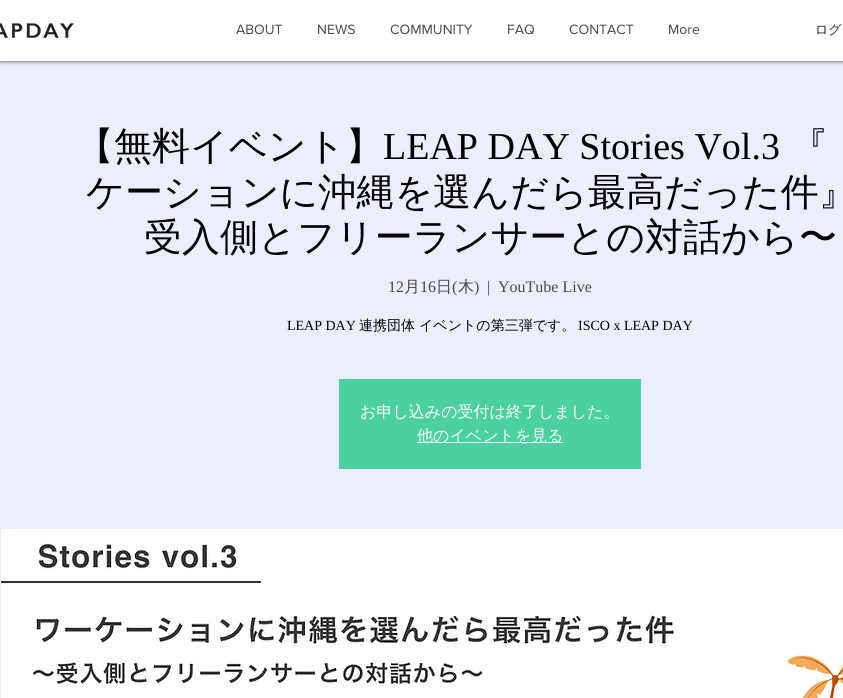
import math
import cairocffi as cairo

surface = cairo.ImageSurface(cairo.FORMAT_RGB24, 843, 698)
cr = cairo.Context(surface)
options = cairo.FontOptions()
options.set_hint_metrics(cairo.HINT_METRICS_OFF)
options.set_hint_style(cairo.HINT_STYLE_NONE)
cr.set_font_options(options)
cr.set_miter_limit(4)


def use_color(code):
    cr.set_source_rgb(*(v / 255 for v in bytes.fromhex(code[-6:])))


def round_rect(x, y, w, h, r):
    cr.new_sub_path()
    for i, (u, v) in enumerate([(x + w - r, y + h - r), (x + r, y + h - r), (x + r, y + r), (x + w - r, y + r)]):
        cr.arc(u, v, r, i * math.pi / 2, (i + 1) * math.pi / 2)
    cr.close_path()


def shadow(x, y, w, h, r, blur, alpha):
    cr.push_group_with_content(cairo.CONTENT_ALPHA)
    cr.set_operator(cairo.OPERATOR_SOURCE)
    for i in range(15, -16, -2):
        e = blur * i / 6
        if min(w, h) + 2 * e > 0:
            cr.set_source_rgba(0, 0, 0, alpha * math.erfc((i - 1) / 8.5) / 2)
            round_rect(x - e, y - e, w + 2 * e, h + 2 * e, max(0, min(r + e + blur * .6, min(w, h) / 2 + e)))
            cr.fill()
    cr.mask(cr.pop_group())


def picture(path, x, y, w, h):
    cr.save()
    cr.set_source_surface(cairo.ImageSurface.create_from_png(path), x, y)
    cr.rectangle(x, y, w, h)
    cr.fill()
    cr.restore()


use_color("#ffffff")
cr.paint()
use_color("#eceefb")
cr.rectangle(0, 61, 843, 637)
cr.fill()
cr.save()
cr.rectangle(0, 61, 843, 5)
cr.clip()
use_color("#000000")
shadow(0, 0, 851, 61, 0, 2.5, 0.7)
cr.restore()
picture("img1.png", 0, 23, 74, 15)
cr.select_font_face("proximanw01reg")
cr.set_font_size(14)
use_color("#4b484d")
cr.move_to(236, 34)
cr.show_text("ABOUT")
cr.move_to(317, 34)
cr.show_text("NEWS")
cr.move_to(390, 34)
cr.show_text("COMMUNITY")
cr.move_to(507, 34)
cr.show_text("FAQ")
cr.move_to(569, 34)
cr.show_text("CONTACT")
cr.move_to(668, 34)
cr.show_text("More")
cr.select_font_face("WenQuanYi Zen Hei Medium")
cr.set_font_size(13)
use_color("#242323")
cr.move_to(815, 34)
cr.show_text("ログ")
cr.set_font_size(38)
use_color("#000000")
cr.move_to(76, 159)
cr.show_text("【無料イベント】")
cr.select_font_face("Liberation Serif")
cr.move_to(383, 159)
cr.show_text("LEAP DAY Stories Vol.3")
cr.select_font_face("WenQuanYi Zen Hei Medium")
cr.move_to(790, 159)
cr.show_text("『")
cr.move_to(86, 205)
cr.show_text("ケーションに沖縄を選んだら最高だった件』")
cr.move_to(144, 250)
cr.show_text("受入側とフリーランサーとの対話から〜")
cr.select_font_face("Liberation Serif")
cr.set_font_size(16)
use_color("#4b484d")
cr.move_to(388, 292)
cr.show_text("12")
cr.select_font_face("WenQuanYi Zen Hei Medium")
cr.move_to(404, 292)
cr.show_text("月")
cr.select_font_face("Liberation Serif")
cr.move_to(420, 292)
cr.show_text("16")
cr.select_font_face("WenQuanYi Zen Hei Medium")
cr.move_to(436, 292)
cr.show_text("日")
cr.select_font_face("Liberation Serif")
cr.move_to(452, 292)
cr.show_text("(")
cr.select_font_face("WenQuanYi Zen Hei Medium")
cr.move_to(458, 292)
cr.show_text("木")
cr.select_font_face("Liberation Serif")
cr.move_to(474, 292)
cr.show_text(")")
cr.move_to(487, 292)
cr.show_text("|")
cr.move_to(498, 292)
cr.show_text("YouTube Live")
cr.set_font_size(14)
use_color("#000000")
cr.move_to(287, 330)
cr.show_text("LEAP DAY")
cr.select_font_face("WenQuanYi Zen Hei Medium")
cr.move_to(359, 330)
cr.show_text("連携団体")
cr.move_to(419, 330)
cr.show_text("イベントの第三弾です。")
cr.select_font_face("Liberation Serif")
cr.move_to(578, 330)
cr.show_text("ISCO x LEAP DAY")
use_color("#4bd1a0")
cr.rectangle(339, 379, 302, 90)
cr.fill()
cr.select_font_face("WenQuanYi Zen Hei Medium")
cr.set_font_size(16)
use_color("#ffffff")
cr.move_to(360, 417)
cr.show_text("お申し込みの受付は終了しました。")
cr.rectangle(417, 442, 146, 1)
cr.fill()
cr.move_to(417, 441)
cr.show_text("他のイベントを見る")
picture("img2.png", 1, 529, 842, 169)
surface.write_to_png("result.png")
